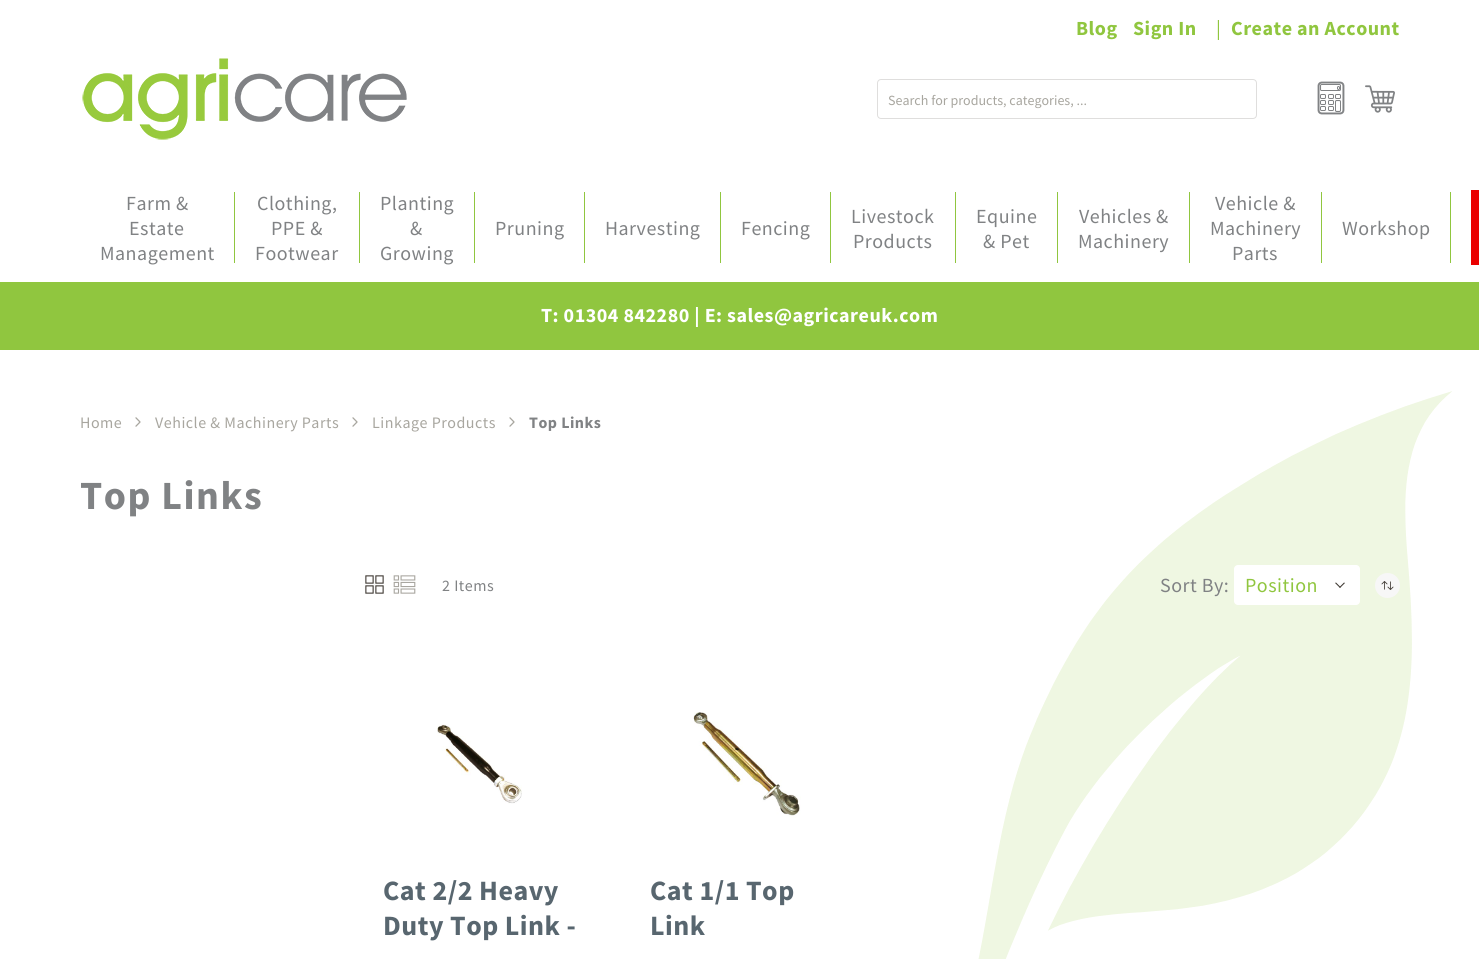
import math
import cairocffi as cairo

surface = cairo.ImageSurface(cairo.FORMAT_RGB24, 1479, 959)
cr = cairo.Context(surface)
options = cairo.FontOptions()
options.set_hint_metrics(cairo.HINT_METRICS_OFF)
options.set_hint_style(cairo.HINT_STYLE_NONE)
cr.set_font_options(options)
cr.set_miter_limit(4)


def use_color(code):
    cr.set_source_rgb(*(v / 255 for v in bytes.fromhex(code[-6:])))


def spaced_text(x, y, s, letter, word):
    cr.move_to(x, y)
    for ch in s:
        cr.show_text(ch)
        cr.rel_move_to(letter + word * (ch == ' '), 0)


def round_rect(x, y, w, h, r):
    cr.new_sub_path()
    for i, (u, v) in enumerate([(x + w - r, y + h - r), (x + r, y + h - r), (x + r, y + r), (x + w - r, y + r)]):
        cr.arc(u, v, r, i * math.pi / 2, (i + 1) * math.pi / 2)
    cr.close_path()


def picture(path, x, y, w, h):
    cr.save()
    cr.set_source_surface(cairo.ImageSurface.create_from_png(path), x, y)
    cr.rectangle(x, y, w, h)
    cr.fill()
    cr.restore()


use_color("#ffffff")
cr.paint()
cr.select_font_face("Source Sans Pro", cairo.FONT_SLANT_NORMAL, cairo.FONT_WEIGHT_BOLD)
cr.set_font_size(20)
use_color("#90c63f")
spaced_text(1076, 35, "Blog", 0.5, 0)
spaced_text(1133, 35, "Sign In", 0.5, 0)
cr.select_font_face("Source Sans Pro")
spaced_text(1216, 35, "|", 0.5, 0)
cr.select_font_face("Source Sans Pro", cairo.FONT_SLANT_NORMAL, cairo.FONT_WEIGHT_BOLD)
spaced_text(1231, 35, "Create an Account", 0.5, 0)
picture("img1.png", 82, 58, 325, 82)
round_rect(877.5, 79.5, 379, 39, 3.5)
use_color("#dfdedd")
cr.set_line_width(1)
cr.stroke()
cr.select_font_face("Source Sans Pro")
cr.set_font_size(14)
use_color("#a8a69f")
cr.move_to(888, 105)
cr.show_text("Search for products, categories, ...")
picture("img2.png", 1317, 81, 28, 34)
picture("img3.png", 1365, 85, 30, 28)
cr.set_font_size(20)
use_color("#808284")
spaced_text(126, 210, "Farm &", 0.5, 0)
spaced_text(129, 235, "Estate", 0.5, 0)
spaced_text(100, 260, "Management", 0.5, 0)
use_color("#90c63f")
cr.rectangle(234, 192, 1, 71)
cr.fill()
use_color("#808284")
spaced_text(257, 210, "Clothing,", 0.5, 0)
spaced_text(271, 235, "PPE &", 0.5, 0)
spaced_text(255, 260, "Footwear", 0.5, 0)
use_color("#90c63f")
cr.rectangle(359, 192, 1, 71)
cr.fill()
use_color("#808284")
spaced_text(380, 210, "Planting", 0.5, 0)
spaced_text(410, 235, "&", 0.5, 0)
spaced_text(380, 260, "Growing", 0.5, 0)
use_color("#90c63f")
cr.rectangle(474, 192, 1, 71)
cr.fill()
use_color("#808284")
spaced_text(495, 235, "Pruning", 0.5, 0)
use_color("#90c63f")
cr.rectangle(584, 192, 1, 71)
cr.fill()
use_color("#808284")
spaced_text(605, 235, "Harvesting", 0.5, 0)
use_color("#90c63f")
cr.rectangle(720, 192, 1, 71)
cr.fill()
use_color("#808284")
spaced_text(741, 235, "Fencing", 0.5, 0)
use_color("#90c63f")
cr.rectangle(830, 192, 1, 71)
cr.fill()
use_color("#808284")
spaced_text(851, 223, "Livestock", 0.5, 0)
spaced_text(853, 248, "Products", 0.5, 0)
use_color("#90c63f")
cr.rectangle(955, 192, 1, 71)
cr.fill()
use_color("#808284")
spaced_text(976, 223, "Equine", 0.5, 0)
spaced_text(983, 248, "& Pet", 0.5, 0)
use_color("#90c63f")
cr.rectangle(1057, 192, 1, 71)
cr.fill()
use_color("#808284")
spaced_text(1079, 223, "Vehicles &", 0.5, 0)
spaced_text(1078, 248, "Machinery", 0.5, 0)
use_color("#90c63f")
cr.rectangle(1189, 192, 1, 71)
cr.fill()
use_color("#808284")
spaced_text(1215, 210, "Vehicle &", 0.5, 0)
spaced_text(1210, 235, "Machinery", 0.5, 0)
spaced_text(1232, 260, "Parts", 0.5, 0)
use_color("#90c63f")
cr.rectangle(1321, 192, 1, 71)
cr.fill()
use_color("#808284")
spaced_text(1342, 235, "Workshop", 0.5, 0)
use_color("#90c63f")
cr.rectangle(1450, 192, 1, 71)
cr.fill()
use_color("#ea0000")
cr.rectangle(1471, 190, 8, 75)
cr.fill()
use_color("#90c63f")
cr.rectangle(0, 282, 1479, 68)
cr.fill()
cr.select_font_face("Source Sans Pro", cairo.FONT_SLANT_NORMAL, cairo.FONT_WEIGHT_BOLD)
use_color("#ffffff")
spaced_text(541, 322, "T: 01304 842280 | E: sales@agricareuk.com", 0.5, 0)
cr.select_font_face("Source Sans Pro")
cr.set_font_size(16)
use_color("#a8a69f")
spaced_text(80, 428, "Home", 0.5, 0)
picture("img4.png", 135, 417, 6, 10)
spaced_text(155, 428, "Vehicle & Machinery Parts", 0.5, 0)
picture("img4.png", 352, 417, 6, 10)
spaced_text(372, 428, "Linkage Products", 0.5, 0)
picture("img4.png", 509, 417, 6, 10)
cr.select_font_face("Source Sans Pro", cairo.FONT_SLANT_NORMAL, cairo.FONT_WEIGHT_BOLD)
use_color("#808284")
spaced_text(529, 428, "Top Links", 0.5, 0)
cr.set_font_size(40)
spaced_text(80, 509, "Top Links", 1.5, 0)
picture("img5.png", 978, 391, 474, 568)
picture("img6.png", 365, 575, 19, 19)
picture("img7.png", 393, 575, 23, 19)
cr.select_font_face("Source Sans Pro")
cr.set_font_size(16)
spaced_text(442, 591, "2 Items", 0.5, 0)
cr.set_font_size(20)
spaced_text(1160, 592, "Sort By:", 0.5, 0)
use_color("#ffffff")
round_rect(1234, 565, 126, 40, 4)
cr.fill()
use_color("#90c63f")
spaced_text(1245, 592, "Position", 0.5, 0)
use_color("#3d3731")
cr.new_path()
cr.move_to(1344, 582.5)
cr.line_to(1345, 583)
cr.line_to(1340, 588)
cr.line_to(1339.5, 587)
cr.close_path()
cr.fill()
cr.new_path()
cr.move_to(1336, 582.5)
cr.line_to(1340.5, 587)
cr.line_to(1340, 588)
cr.line_to(1335, 583)
cr.close_path()
cr.fill()
use_color("#f7f7f7")
cr.arc(1387.5, 585.5, 12.5, 0, 2 * math.pi)
cr.fill()
picture("img8.png", 1381, 581, 13, 9)
picture("img9.png", 437, 724, 85, 80)
cr.select_font_face("Source Sans Pro", cairo.FONT_SLANT_NORMAL, cairo.FONT_WEIGHT_BOLD)
cr.set_font_size(28)
use_color("#58666f")
spaced_text(383, 900, "Cat 2/2 Heavy", 0.5, 0)
spaced_text(383, 935, "Duty Top Link -", 0.5, 0)
picture("img10.png", 693, 712, 108, 106)
spaced_text(650, 900, "Cat 1/1 Top", 0.5, 0)
spaced_text(650, 935, "Link", 0.5, 0)
surface.write_to_png("result.png")
